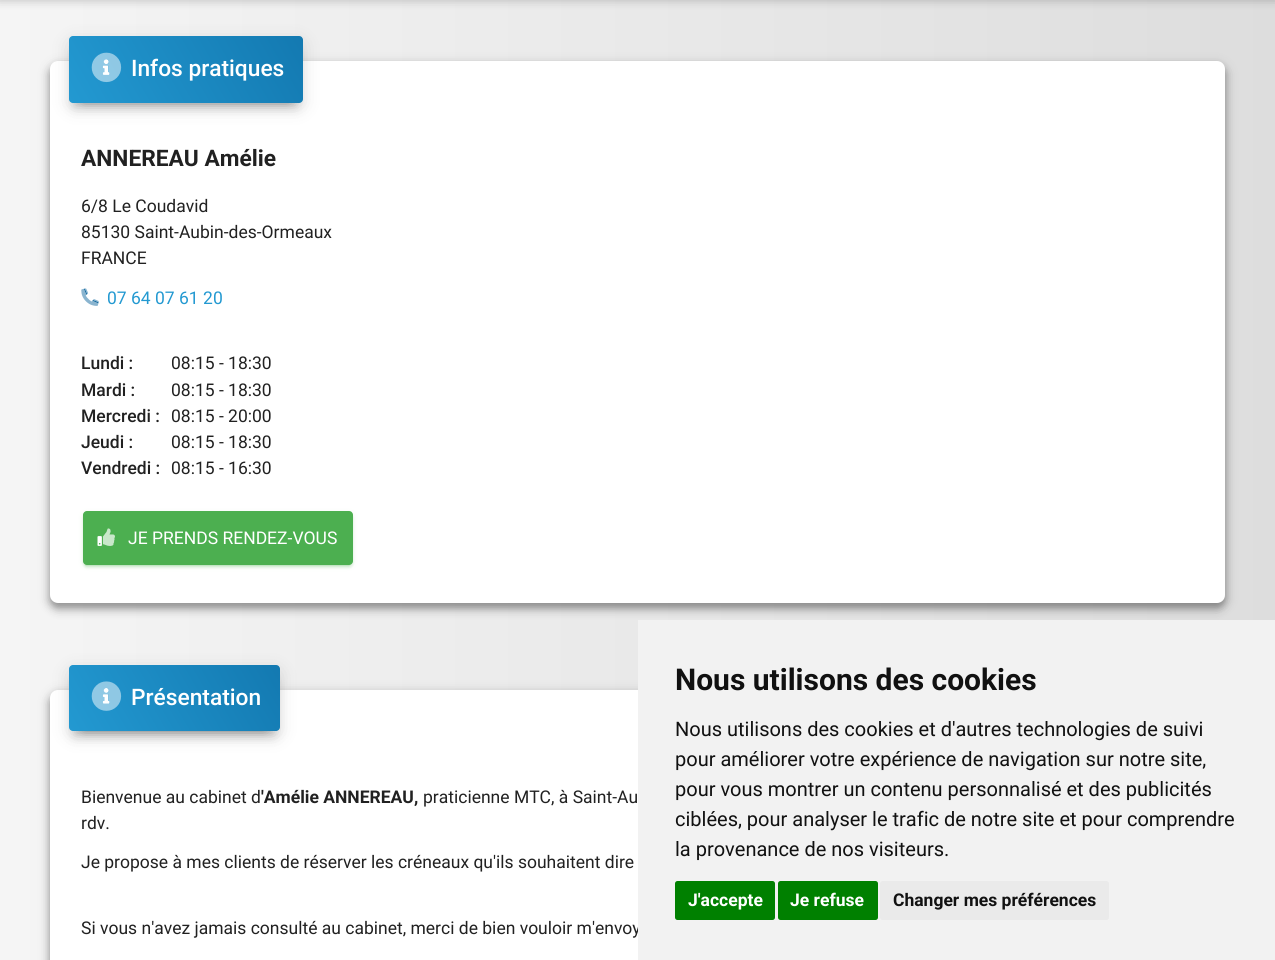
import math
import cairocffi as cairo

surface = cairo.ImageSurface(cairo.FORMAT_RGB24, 1275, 960)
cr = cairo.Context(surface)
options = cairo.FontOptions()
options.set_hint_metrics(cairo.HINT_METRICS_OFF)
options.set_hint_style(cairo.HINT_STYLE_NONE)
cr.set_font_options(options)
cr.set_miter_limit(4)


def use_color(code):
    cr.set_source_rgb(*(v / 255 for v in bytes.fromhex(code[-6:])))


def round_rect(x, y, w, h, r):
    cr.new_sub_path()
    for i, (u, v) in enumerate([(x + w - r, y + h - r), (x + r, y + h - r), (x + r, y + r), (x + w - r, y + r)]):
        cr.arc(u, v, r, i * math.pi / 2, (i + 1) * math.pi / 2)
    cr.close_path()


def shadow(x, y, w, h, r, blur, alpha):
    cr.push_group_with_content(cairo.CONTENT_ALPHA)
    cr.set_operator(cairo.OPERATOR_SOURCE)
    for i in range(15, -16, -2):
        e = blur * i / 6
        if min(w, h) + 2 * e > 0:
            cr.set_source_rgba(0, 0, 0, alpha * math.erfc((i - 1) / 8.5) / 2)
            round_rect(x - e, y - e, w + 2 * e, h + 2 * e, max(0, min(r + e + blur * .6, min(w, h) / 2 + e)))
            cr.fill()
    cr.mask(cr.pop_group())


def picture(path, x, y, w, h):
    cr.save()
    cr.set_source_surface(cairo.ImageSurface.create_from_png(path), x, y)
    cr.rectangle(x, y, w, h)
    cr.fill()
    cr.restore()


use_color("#ffffff")
cr.paint()
gradient = cairo.LinearGradient(0, 125, 1275, 125)
gradient.add_color_stop_rgba(0, 0.961, 0.961, 0.961, 1)
gradient.add_color_stop_rgba(1, 0.867, 0.867, 0.867, 1)
cr.set_source(gradient)
cr.rectangle(0, 0, 1275, 960)
cr.fill()
use_color("#000000")
shadow(-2, -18, 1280, 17, 0, 6, 0.12)
shadow(-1, -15, 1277, 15, 0, 5, 0.14)
shadow(50, 66, 1175, 542, 8, 3, 0.2)
shadow(48, 63, 1180, 546, 10, 6, 0.12)
shadow(49, 66, 1177, 544, 9, 5, 0.14)
use_color("#ffffff")
round_rect(50, 61, 1175, 542, 8)
cr.fill()
use_color("#000000")
shadow(75, 53, 221, 53, 0, 6, 0.2)
shadow(69, 41, 234, 67, 4, 9.5, 0.12)
shadow(84, 64, 204, 36, 0, 6, 0.42)
gradient = cairo.LinearGradient(84, 128, 288, 10)
gradient.add_color_stop_rgba(0, 0.137, 0.6, 0.82, 1)
gradient.add_color_stop_rgba(1, 0.075, 0.475, 0.694, 1)
cr.set_source(gradient)
round_rect(69, 36, 234, 67, 4)
cr.fill()
picture("img2.png", 102, 59, 8, 16)
picture("img1.png", 91, 52, 31, 31)
cr.select_font_face("Roboto Medium")
cr.set_font_size(22.75)
use_color("#ffffff")
cr.move_to(131, 76)
cr.show_text("Infos pratiques")
cr.select_font_face("Roboto", cairo.FONT_SLANT_NORMAL, cairo.FONT_WEIGHT_BOLD)
use_color("#212121")
cr.move_to(81, 166)
cr.show_text("ANNEREAU Amélie")
cr.select_font_face("Roboto")
cr.set_font_size(17.5)
cr.move_to(81, 212)
cr.show_text("6/8 Le Coudavid")
cr.move_to(81, 238)
cr.show_text("85130 Saint-Aubin-des-Ormeaux")
cr.move_to(81, 264)
cr.show_text("FRANCE")
picture("img4.png", 83, 288, 16, 16)
picture("img3.png", 81, 288, 18, 18)
use_color("#2399d1")
cr.move_to(107, 304)
cr.show_text("07 64 07 61 20")
cr.select_font_face("Roboto Medium")
use_color("#212121")
cr.move_to(81, 369)
cr.show_text("Lundi :")
cr.select_font_face("Roboto")
cr.move_to(171, 369)
cr.show_text("08:15 - 18:30")
cr.select_font_face("Roboto Medium")
cr.move_to(81, 396)
cr.show_text("Mardi :")
cr.select_font_face("Roboto")
cr.move_to(171, 396)
cr.show_text("08:15 - 18:30")
cr.select_font_face("Roboto Medium")
cr.move_to(81, 422)
cr.show_text("Mercredi :")
cr.select_font_face("Roboto")
cr.move_to(171, 422)
cr.show_text("08:15 - 20:00")
cr.select_font_face("Roboto Medium")
cr.move_to(81, 448)
cr.show_text("Jeudi :")
cr.select_font_face("Roboto")
cr.move_to(171, 448)
cr.show_text("08:15 - 18:30")
cr.select_font_face("Roboto Medium")
cr.move_to(81, 474)
cr.show_text("Vendredi :")
cr.select_font_face("Roboto")
cr.move_to(171, 474)
cr.show_text("08:15 - 16:30")
use_color("#4caf50")
shadow(83, 513, 270, 53, 4, 3, 0.12)
shadow(85, 518, 265, 48, 1, 0.5, 0.2)
shadow(83, 514, 270, 54, 4, 1, 0.14)
use_color("#4caf50")
round_rect(83, 511, 270, 54, 4)
cr.fill()
picture("img5.png", 97, 536, 5, 10)
picture("img6.png", 102, 528, 13, 18)
use_color("#ffffff")
cr.move_to(128, 544)
cr.show_text("JE PRENDS RENDEZ-VOUS")
use_color("#000000")
shadow(50, 695, 1175, 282, 8, 3, 0.2)
shadow(48, 691, 1180, 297, 10, 6, 0.12)
shadow(49, 695, 1177, 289, 9, 5, 0.14)
use_color("#ffffff")
round_rect(50, 690, 1175, 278, 8)
cr.fill()
use_color("#000000")
shadow(75, 681, 199, 54, 0, 6, 0.2)
shadow(69, 670, 211, 66, 4, 9.5, 0.12)
shadow(84, 693, 181, 36, 0, 6, 0.42)
gradient = cairo.LinearGradient(81, 752, 268, 644)
gradient.add_color_stop_rgba(0, 0.137, 0.6, 0.82, 1)
gradient.add_color_stop_rgba(1, 0.075, 0.475, 0.694, 1)
cr.set_source(gradient)
round_rect(69, 665, 211, 66, 4)
cr.fill()
picture("img8.png", 102, 688, 8, 16)
picture("img7.png", 91, 681, 31, 30)
cr.select_font_face("Roboto Medium")
cr.set_font_size(22.75)
use_color("#ffffff")
cr.move_to(131, 705)
cr.show_text("Présentation")
cr.select_font_face("Roboto")
cr.set_font_size(17.5)
use_color("#212121")
cr.move_to(81, 803)
cr.show_text("Bienvenue au cabinet d")
cr.select_font_face("Roboto", cairo.FONT_SLANT_NORMAL, cairo.FONT_WEIGHT_BOLD)
cr.move_to(261, 803)
cr.show_text("'Amélie ANNEREAU,")
cr.select_font_face("Roboto")
cr.move_to(423, 803)
cr.show_text("praticienne MTC, à Saint-Au")
cr.move_to(81, 829)
cr.show_text("rdv.")
cr.move_to(81, 868)
cr.show_text("Je propose à mes clients de réserver les créneaux qu'ils souhaitent dire")
cr.move_to(81, 934)
cr.show_text("Si vous n'avez jamais consulté au cabinet, merci de bien vouloir m'envoy")
use_color("#f2f2f2")
cr.rectangle(638, 620, 637, 340)
cr.fill()
cr.select_font_face("Roboto", cairo.FONT_SLANT_NORMAL, cairo.FONT_WEIGHT_BOLD)
cr.set_font_size(30)
use_color("#111111")
cr.move_to(675, 690)
cr.show_text("Nous utilisons des cookies")
cr.select_font_face("Roboto")
cr.set_font_size(20)
cr.move_to(675, 736)
cr.show_text("Nous utilisons des cookies et d'autres technologies de suivi")
cr.move_to(675, 766)
cr.show_text("pour améliorer votre expérience de navigation sur notre site,")
cr.move_to(675, 796)
cr.show_text("pour vous montrer un contenu personnalisé et des publicités")
cr.move_to(675, 826)
cr.show_text("ciblées, pour analyser le trafic de notre site et pour comprendre")
cr.move_to(675, 856)
cr.show_text("la provenance de nos visiteurs.")
use_color("#008000")
round_rect(675, 881, 100, 39, 2.5)
cr.fill()
cr.select_font_face("Roboto", cairo.FONT_SLANT_NORMAL, cairo.FONT_WEIGHT_BOLD)
cr.set_font_size(17.5)
use_color("#ffffff")
cr.move_to(688, 906)
cr.show_text("J'accepte")
use_color("#008000")
round_rect(778, 881, 100, 39, 2.5)
cr.fill()
use_color("#ffffff")
cr.move_to(790, 906)
cr.show_text("Je refuse")
use_color("#eaeaea")
round_rect(880, 881, 229, 39, 2.5)
cr.fill()
use_color("#111111")
cr.move_to(893, 906)
cr.show_text("Changer mes préférences")
surface.write_to_png("result.png")
